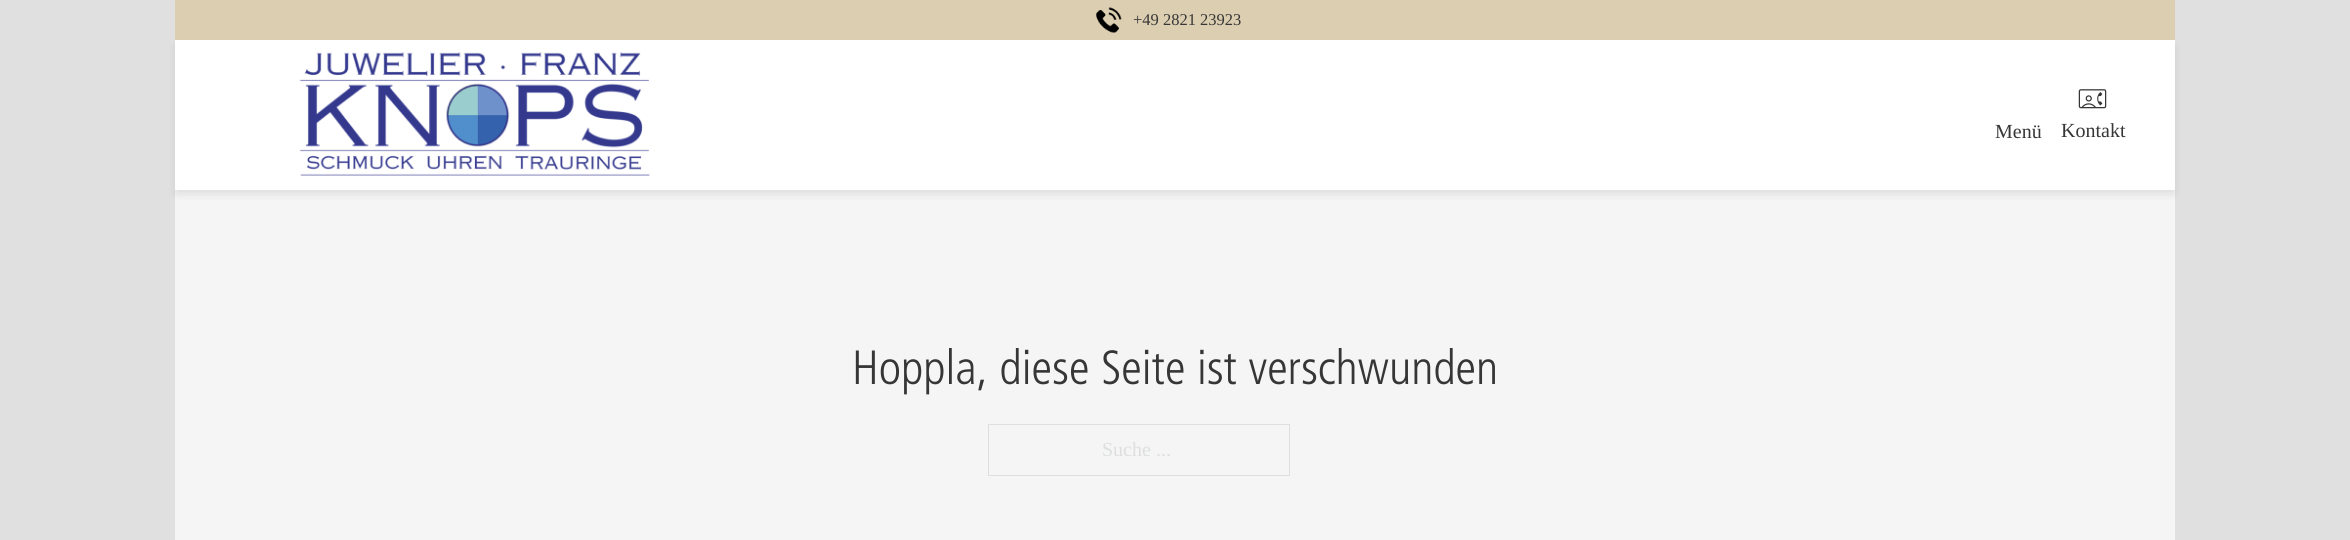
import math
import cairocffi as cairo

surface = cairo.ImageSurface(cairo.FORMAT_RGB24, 2350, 540)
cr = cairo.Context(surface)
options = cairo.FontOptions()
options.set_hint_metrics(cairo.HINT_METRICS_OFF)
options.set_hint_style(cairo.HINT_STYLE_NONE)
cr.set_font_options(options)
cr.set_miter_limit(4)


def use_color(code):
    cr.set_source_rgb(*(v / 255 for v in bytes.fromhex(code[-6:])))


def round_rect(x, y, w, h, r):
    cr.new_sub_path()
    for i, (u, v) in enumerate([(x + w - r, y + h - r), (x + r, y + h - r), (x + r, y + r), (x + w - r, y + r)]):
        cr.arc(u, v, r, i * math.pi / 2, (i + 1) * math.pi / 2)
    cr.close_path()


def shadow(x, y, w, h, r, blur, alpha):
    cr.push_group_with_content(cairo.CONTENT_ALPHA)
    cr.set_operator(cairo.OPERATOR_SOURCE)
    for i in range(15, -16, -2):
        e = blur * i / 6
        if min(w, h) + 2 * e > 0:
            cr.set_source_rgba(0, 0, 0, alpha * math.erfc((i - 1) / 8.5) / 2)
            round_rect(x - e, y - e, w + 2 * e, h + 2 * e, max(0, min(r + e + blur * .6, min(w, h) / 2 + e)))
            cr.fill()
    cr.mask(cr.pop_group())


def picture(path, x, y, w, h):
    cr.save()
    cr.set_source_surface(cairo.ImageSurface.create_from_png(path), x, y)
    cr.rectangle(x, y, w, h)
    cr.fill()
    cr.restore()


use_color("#e0e0e0")
cr.paint()
use_color("#f5f5f5")
cr.rectangle(175, 190, 2000, 350)
cr.fill()
use_color("#000000")
shadow(176, 46, 1998, 148, 0, 4, 0.1)
use_color("#dcceb1")
cr.rectangle(175, 0, 2000, 40)
cr.fill()
picture("img1.png", 1096, 7, 26, 26)
cr.select_font_face("Liberation Serif")
cr.set_font_size(16.5)
use_color("#363636")
cr.move_to(1133, 25)
cr.show_text("+49 2821 23923")
use_color("#ffffff")
cr.rectangle(175, 40, 2000, 150)
cr.fill()
picture("img2.png", 299, 52, 351, 124)
cr.set_font_size(20)
use_color("#363636")
cr.move_to(1995, 138)
cr.show_text("Menü")
picture("img3.png", 2078, 89, 29, 20)
cr.move_to(2061, 137)
cr.show_text("Kontakt")
cr.select_font_face("Frutiger Light")
cr.set_font_size(48)
cr.move_to(852, 384)
cr.show_text("Hoppla, diese Seite ist verschwunden")
cr.rectangle(988.5, 424.5, 301, 51)
use_color("#dddedf")
cr.set_line_width(1)
cr.stroke()
cr.select_font_face("Liberation Serif")
cr.set_font_size(20)
cr.move_to(1102, 456)
cr.show_text("Suche ...")
surface.write_to_png("result.png")
